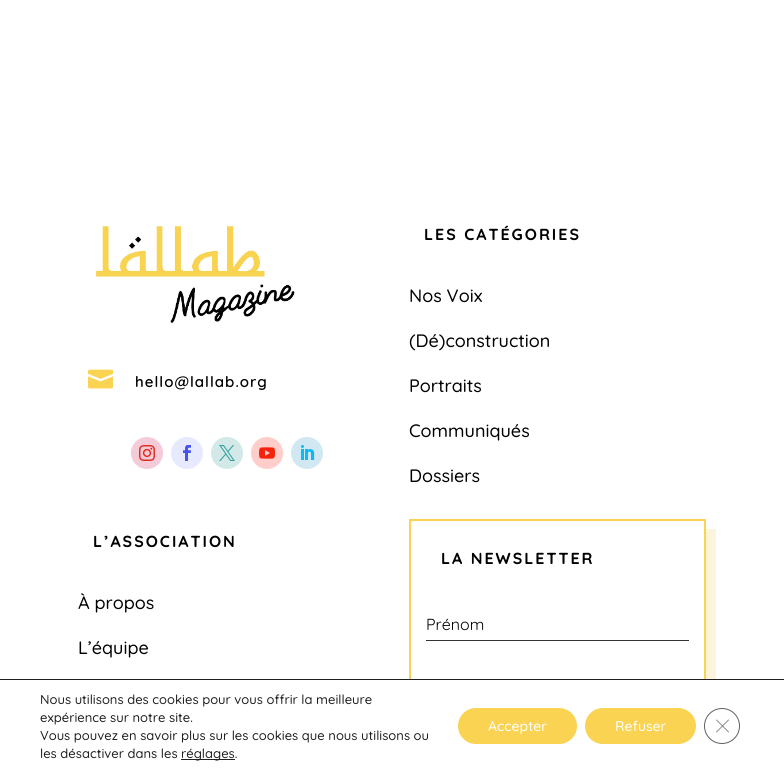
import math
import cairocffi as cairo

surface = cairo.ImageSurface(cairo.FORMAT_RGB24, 784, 772)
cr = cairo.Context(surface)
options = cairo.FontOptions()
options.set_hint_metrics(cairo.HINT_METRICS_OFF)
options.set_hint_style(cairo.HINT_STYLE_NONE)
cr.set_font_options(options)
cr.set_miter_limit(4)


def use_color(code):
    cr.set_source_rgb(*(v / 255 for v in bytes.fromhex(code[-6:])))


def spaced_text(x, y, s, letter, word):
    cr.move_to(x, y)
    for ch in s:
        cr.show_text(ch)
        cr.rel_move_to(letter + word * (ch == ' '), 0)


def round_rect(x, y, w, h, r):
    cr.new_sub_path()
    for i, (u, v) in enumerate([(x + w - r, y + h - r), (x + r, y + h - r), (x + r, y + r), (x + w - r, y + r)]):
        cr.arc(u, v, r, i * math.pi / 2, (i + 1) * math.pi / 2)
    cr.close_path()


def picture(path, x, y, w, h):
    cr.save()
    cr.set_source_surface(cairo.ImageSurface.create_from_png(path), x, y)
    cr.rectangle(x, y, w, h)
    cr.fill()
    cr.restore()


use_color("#ffffff")
cr.paint()
picture("img1.png", 95, 226, 200, 97)
picture("img2.png", 88, 369, 25, 20)
cr.select_font_face("Quicksand SemiBold")
cr.set_font_size(15)
use_color("#000000")
spaced_text(135, 387, "hello@lallab.org", 1, 0)
use_color("#f4cbd7")
cr.new_path()
cr.arc(147, 453, 16, 0, 2 * math.pi)
cr.fill()
picture("img3.png", 139, 445, 16, 16)
use_color("#e7eaff")
cr.arc(187, 453, 16, 0, 2 * math.pi)
cr.fill()
picture("img4.png", 183, 445, 8, 16)
use_color("#d2e9e8")
cr.arc(227, 453, 16, 0, 2 * math.pi)
cr.fill()
picture("img5.png", 219, 445, 16, 16)
use_color("#ffceca")
cr.arc(267, 453, 16, 0, 2 * math.pi)
cr.fill()
picture("img6.png", 259, 447, 16, 12)
use_color("#d1e7f2")
cr.arc(307, 453, 16, 0, 2 * math.pi)
cr.fill()
picture("img7.png", 301, 445, 14, 15)
cr.select_font_face("Quicksand Light")
cr.set_font_size(16)
use_color("#000000")
spaced_text(424, 240, "LES CATÉGORIES", 2, 0)
cr.select_font_face("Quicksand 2 Light")
cr.set_font_size(18)
cr.move_to(409, 302)
cr.show_text("Nos Voix")
cr.move_to(409, 347)
cr.show_text("(Dé)construction")
cr.move_to(409, 392)
cr.show_text("Portraits")
cr.move_to(409, 437)
cr.show_text("Communiqués")
cr.move_to(409, 482)
cr.show_text("Dossiers")
cr.select_font_face("Quicksand Light")
cr.set_font_size(16)
spaced_text(93, 547, "L’ASSOCIATION", 2, 0)
cr.select_font_face("Quicksand 2 Light")
cr.set_font_size(18)
cr.move_to(78, 609)
cr.show_text("À propos")
cr.move_to(78, 654)
cr.show_text("L’équipe")
use_color("#fcf5db")
cr.new_path()
cr.move_to(419, 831)
cr.line_to(419, 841)
cr.line_to(716, 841)
cr.line_to(716, 529)
cr.line_to(706, 529)
cr.line_to(706, 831)
cr.close_path()
cr.fill()
cr.rectangle(410, 520, 295, 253)
use_color("#f9d351")
cr.stroke()
cr.select_font_face("Quicksand Light")
cr.set_font_size(16)
use_color("#000000")
spaced_text(441, 564, "LA NEWSLETTER", 2, 0)
use_color("#333333")
cr.rectangle(426, 640, 263, 1)
cr.fill()
cr.select_font_face("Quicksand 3 Light")
use_color("#000000")
cr.move_to(426, 630)
cr.show_text("Prénom")
use_color("#ffffff")
cr.rectangle(409, 680, 307, 92)
cr.fill()
use_color("#202020")
cr.rectangle(0, 679, 784, 1)
cr.fill()
cr.select_font_face("Quicksand 2 Light")
cr.set_font_size(13)
cr.move_to(40, 704)
cr.show_text("Nous utilisons des cookies pour vous offrir la meilleure")
cr.move_to(40, 722)
cr.show_text("expérience sur notre site.")
cr.move_to(40, 740)
cr.show_text("Vous pouvez en savoir plus sur les cookies que nous utilisons ou")
cr.move_to(40, 758)
cr.show_text("les désactiver dans les")
cr.rectangle(181, 759, 54, 1)
cr.fill()
cr.move_to(181, 758)
cr.show_text("réglages.")
use_color("#f9d351")
round_rect(458, 708, 119, 36, 18)
cr.fill()
cr.set_font_size(14)
use_color("#ffffff")
cr.move_to(488, 731)
cr.show_text("Accepter")
use_color("#f9d351")
round_rect(585, 708, 111, 36, 18)
cr.fill()
use_color("#ffffff")
cr.move_to(615, 731)
cr.show_text("Refuser")
cr.new_path()
cr.arc(722, 726, 17.5, 0, 2 * math.pi)
use_color("#626262")
cr.set_line_width(1)
cr.stroke()
cr.new_path()
cr.move_to(728.5, 719.5)
cr.line_to(729, 720)
cr.line_to(716.5, 732.5)
cr.line_to(716, 732)
cr.close_path()
cr.fill()
cr.new_path()
cr.move_to(716, 720)
cr.line_to(716.5, 719.5)
cr.line_to(729, 732)
cr.line_to(728.5, 732.5)
cr.close_path()
cr.fill()
surface.write_to_png("result.png")
